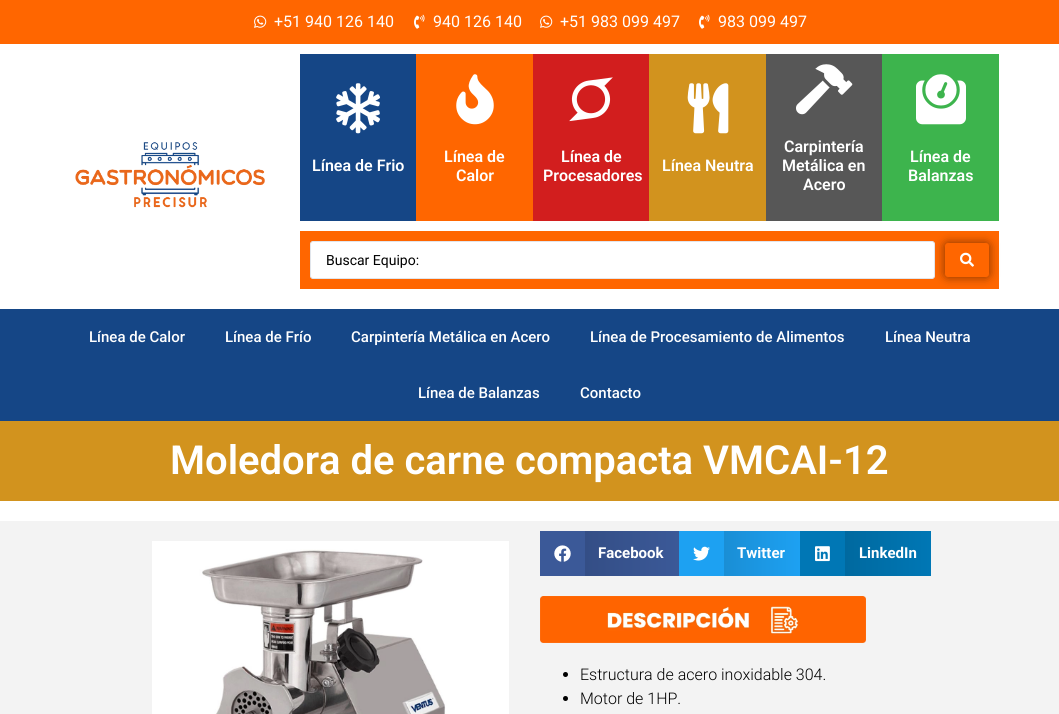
import math
import cairocffi as cairo

surface = cairo.ImageSurface(cairo.FORMAT_RGB24, 1059, 714)
cr = cairo.Context(surface)
options = cairo.FontOptions()
options.set_hint_metrics(cairo.HINT_METRICS_OFF)
options.set_hint_style(cairo.HINT_STYLE_NONE)
cr.set_font_options(options)
cr.set_miter_limit(4)


def use_color(code):
    cr.set_source_rgb(*(v / 255 for v in bytes.fromhex(code[-6:])))


def round_rect(x, y, w, h, r):
    cr.new_sub_path()
    for i, (u, v) in enumerate([(x + w - r, y + h - r), (x + r, y + h - r), (x + r, y + r), (x + w - r, y + r)]):
        cr.arc(u, v, r, i * math.pi / 2, (i + 1) * math.pi / 2)
    cr.close_path()


def shadow(x, y, w, h, r, blur, alpha):
    cr.push_group_with_content(cairo.CONTENT_ALPHA)
    cr.set_operator(cairo.OPERATOR_SOURCE)
    for i in range(15, -16, -2):
        e = blur * i / 6
        if min(w, h) + 2 * e > 0:
            cr.set_source_rgba(0, 0, 0, alpha * math.erfc((i - 1) / 8.5) / 2)
            round_rect(x - e, y - e, w + 2 * e, h + 2 * e, max(0, min(r + e + blur * .6, min(w, h) / 2 + e)))
            cr.fill()
    cr.mask(cr.pop_group())


def picture(path, x, y, w, h):
    cr.save()
    cr.set_source_surface(cairo.ImageSurface.create_from_png(path), x, y)
    cr.rectangle(x, y, w, h)
    cr.fill()
    cr.restore()


use_color("#ffffff")
cr.paint()
use_color("#ff6600")
cr.rectangle(0, 0, 1059, 44)
cr.fill()
picture("img1.png", 254, 15, 13, 13)
cr.select_font_face("Roboto")
cr.set_font_size(16)
use_color("#ffffff")
cr.move_to(274, 27)
cr.show_text("+51 940 126 140")
picture("img2.png", 414, 14, 11, 15)
cr.move_to(433, 27)
cr.show_text("940 126 140")
picture("img1.png", 540, 15, 13, 13)
cr.move_to(560, 27)
cr.show_text("+51 983 099 497")
picture("img2.png", 699, 14, 11, 15)
cr.move_to(718, 27)
cr.show_text("983 099 497")
picture("img3.png", 75, 142, 190, 66)
use_color("#154686")
cr.rectangle(300, 54, 116, 167)
cr.fill()
picture("img4.png", 336, 83, 44, 51)
cr.select_font_face("Roboto SemiBold")
use_color("#ffffff")
cr.move_to(312, 171)
cr.show_text("Línea de Frio")
use_color("#ff6600")
cr.rectangle(416, 54, 117, 167)
cr.fill()
picture("img5.png", 456, 74, 38, 51)
use_color("#ffffff")
cr.move_to(444, 162)
cr.show_text("Línea de")
cr.move_to(456, 181)
cr.show_text("Calor")
use_color("#d21e1e")
cr.rectangle(533, 54, 116, 167)
cr.fill()
picture("img6.png", 569, 77, 44, 45)
use_color("#ffffff")
cr.move_to(561, 162)
cr.show_text("Línea de")
cr.move_to(543, 181)
cr.show_text("Procesadores")
use_color("#d2931e")
cr.rectangle(649, 54, 117, 167)
cr.fill()
picture("img7.png", 687, 83, 42, 51)
use_color("#ffffff")
cr.move_to(662, 171)
cr.show_text("Línea Neutra")
use_color("#575757")
cr.rectangle(766, 54, 116, 167)
cr.fill()
picture("img8.png", 796, 64, 57, 51)
use_color("#ffffff")
cr.move_to(784, 152)
cr.show_text("Carpintería")
cr.move_to(782, 171)
cr.show_text("Metálica en")
cr.move_to(803, 190)
cr.show_text("Acero")
use_color("#3db44d")
cr.rectangle(882, 54, 117, 167)
cr.fill()
picture("img9.png", 916, 74, 50, 51)
use_color("#ffffff")
cr.move_to(910, 162)
cr.show_text("Línea de")
cr.move_to(908, 181)
cr.show_text("Balanzas")
use_color("#ff6600")
cr.rectangle(300, 231, 699, 58)
cr.fill()
use_color("#000000")
shadow(945, 243, 44, 34, 3, 5, 0.5)
use_color("#ffffff")
round_rect(310.5, 241.5, 624, 37, 2.5)
cr.fill_preserve()
use_color("#e1e5eb")
cr.set_line_width(1)
cr.stroke()
cr.select_font_face("Roboto")
cr.set_font_size(14)
use_color("#000000")
cr.move_to(326, 265)
cr.show_text("Buscar Equipo:")
use_color("#ff6600")
round_rect(945, 243, 44, 34, 3)
cr.fill()
picture("img10.png", 960, 252, 14, 15)
use_color("#154686")
cr.rectangle(0, 309, 1059, 112)
cr.fill()
cr.select_font_face("Roboto Medium")
cr.set_font_size(15)
use_color("#ffffff")
cr.move_to(89, 342)
cr.show_text("Línea de Calor")
cr.move_to(225, 342)
cr.show_text("Línea de Frío")
cr.move_to(351, 342)
cr.show_text("Carpintería Metálica en Acero")
cr.move_to(590, 342)
cr.show_text("Línea de Procesamiento de Alimentos")
cr.move_to(885, 342)
cr.show_text("Línea Neutra")
cr.move_to(418, 398)
cr.show_text("Línea de Balanzas")
cr.move_to(580, 398)
cr.show_text("Contacto")
use_color("#d2931e")
cr.rectangle(0, 421, 1059, 80)
cr.fill()
cr.select_font_face("Roboto SemiBold")
cr.set_font_size(40)
use_color("#ffffff")
cr.move_to(170, 474)
cr.show_text("Moledora de carne compacta VMCAI-12")
use_color("#f3f3f3")
cr.rectangle(0, 521, 1059, 193)
cr.fill()
picture("img11.png", 152, 541, 357, 173)
use_color("#3b5998")
cr.rectangle(540, 531, 45, 45)
cr.fill()
picture("img12.png", 554, 545, 17, 17)
gradient = cairo.LinearGradient(585, 554, 679, 554)
gradient.add_color_stop_rgba(0, 0.204, 0.306, 0.525, 1)
gradient.add_color_stop_rgba(1, 0.231, 0.349, 0.596, 1)
cr.set_source(gradient)
cr.rectangle(585, 531, 94, 45)
cr.fill()
cr.select_font_face("Roboto", cairo.FONT_SLANT_NORMAL, cairo.FONT_WEIGHT_BOLD)
cr.set_font_size(15)
use_color("#ffffff")
cr.move_to(598, 558)
cr.show_text("Facebook")
use_color("#1da1f2")
cr.rectangle(679, 531, 45, 45)
cr.fill()
picture("img13.png", 693, 546, 17, 15)
gradient = cairo.LinearGradient(724, 554, 800, 554)
gradient.add_color_stop_rgba(0, 0.102, 0.557, 0.835, 1)
gradient.add_color_stop_rgba(1, 0.114, 0.631, 0.949, 1)
cr.set_source(gradient)
cr.rectangle(724, 531, 76, 45)
cr.fill()
use_color("#ffffff")
cr.move_to(737, 558)
cr.show_text("Twitter")
use_color("#0077b5")
cr.rectangle(800, 531, 45, 45)
cr.fill()
picture("img14.png", 815, 546, 15, 16)
gradient = cairo.LinearGradient(845, 554, 931, 554)
gradient.add_color_stop_rgba(0, 0, 0.412, 0.624, 1)
gradient.add_color_stop_rgba(1, 0, 0.467, 0.71, 1)
cr.set_source(gradient)
cr.rectangle(845, 531, 86, 45)
cr.fill()
use_color("#ffffff")
cr.move_to(859, 558)
cr.show_text("LinkedIn")
picture("img15.png", 540, 596, 326, 47)
use_color("#000000")
cr.arc(565.5, 674.5, 2.5, 0, 2 * math.pi)
cr.fill()
cr.select_font_face("Roboto Light")
cr.set_font_size(16)
cr.move_to(580, 680)
cr.show_text("Estructura de acero inoxidable 304.")
cr.new_path()
cr.arc(565.5, 698.5, 2.5, 0, 2 * math.pi)
cr.fill()
cr.move_to(580, 704)
cr.show_text("Motor de 1HP.")
surface.write_to_png("result.png")
